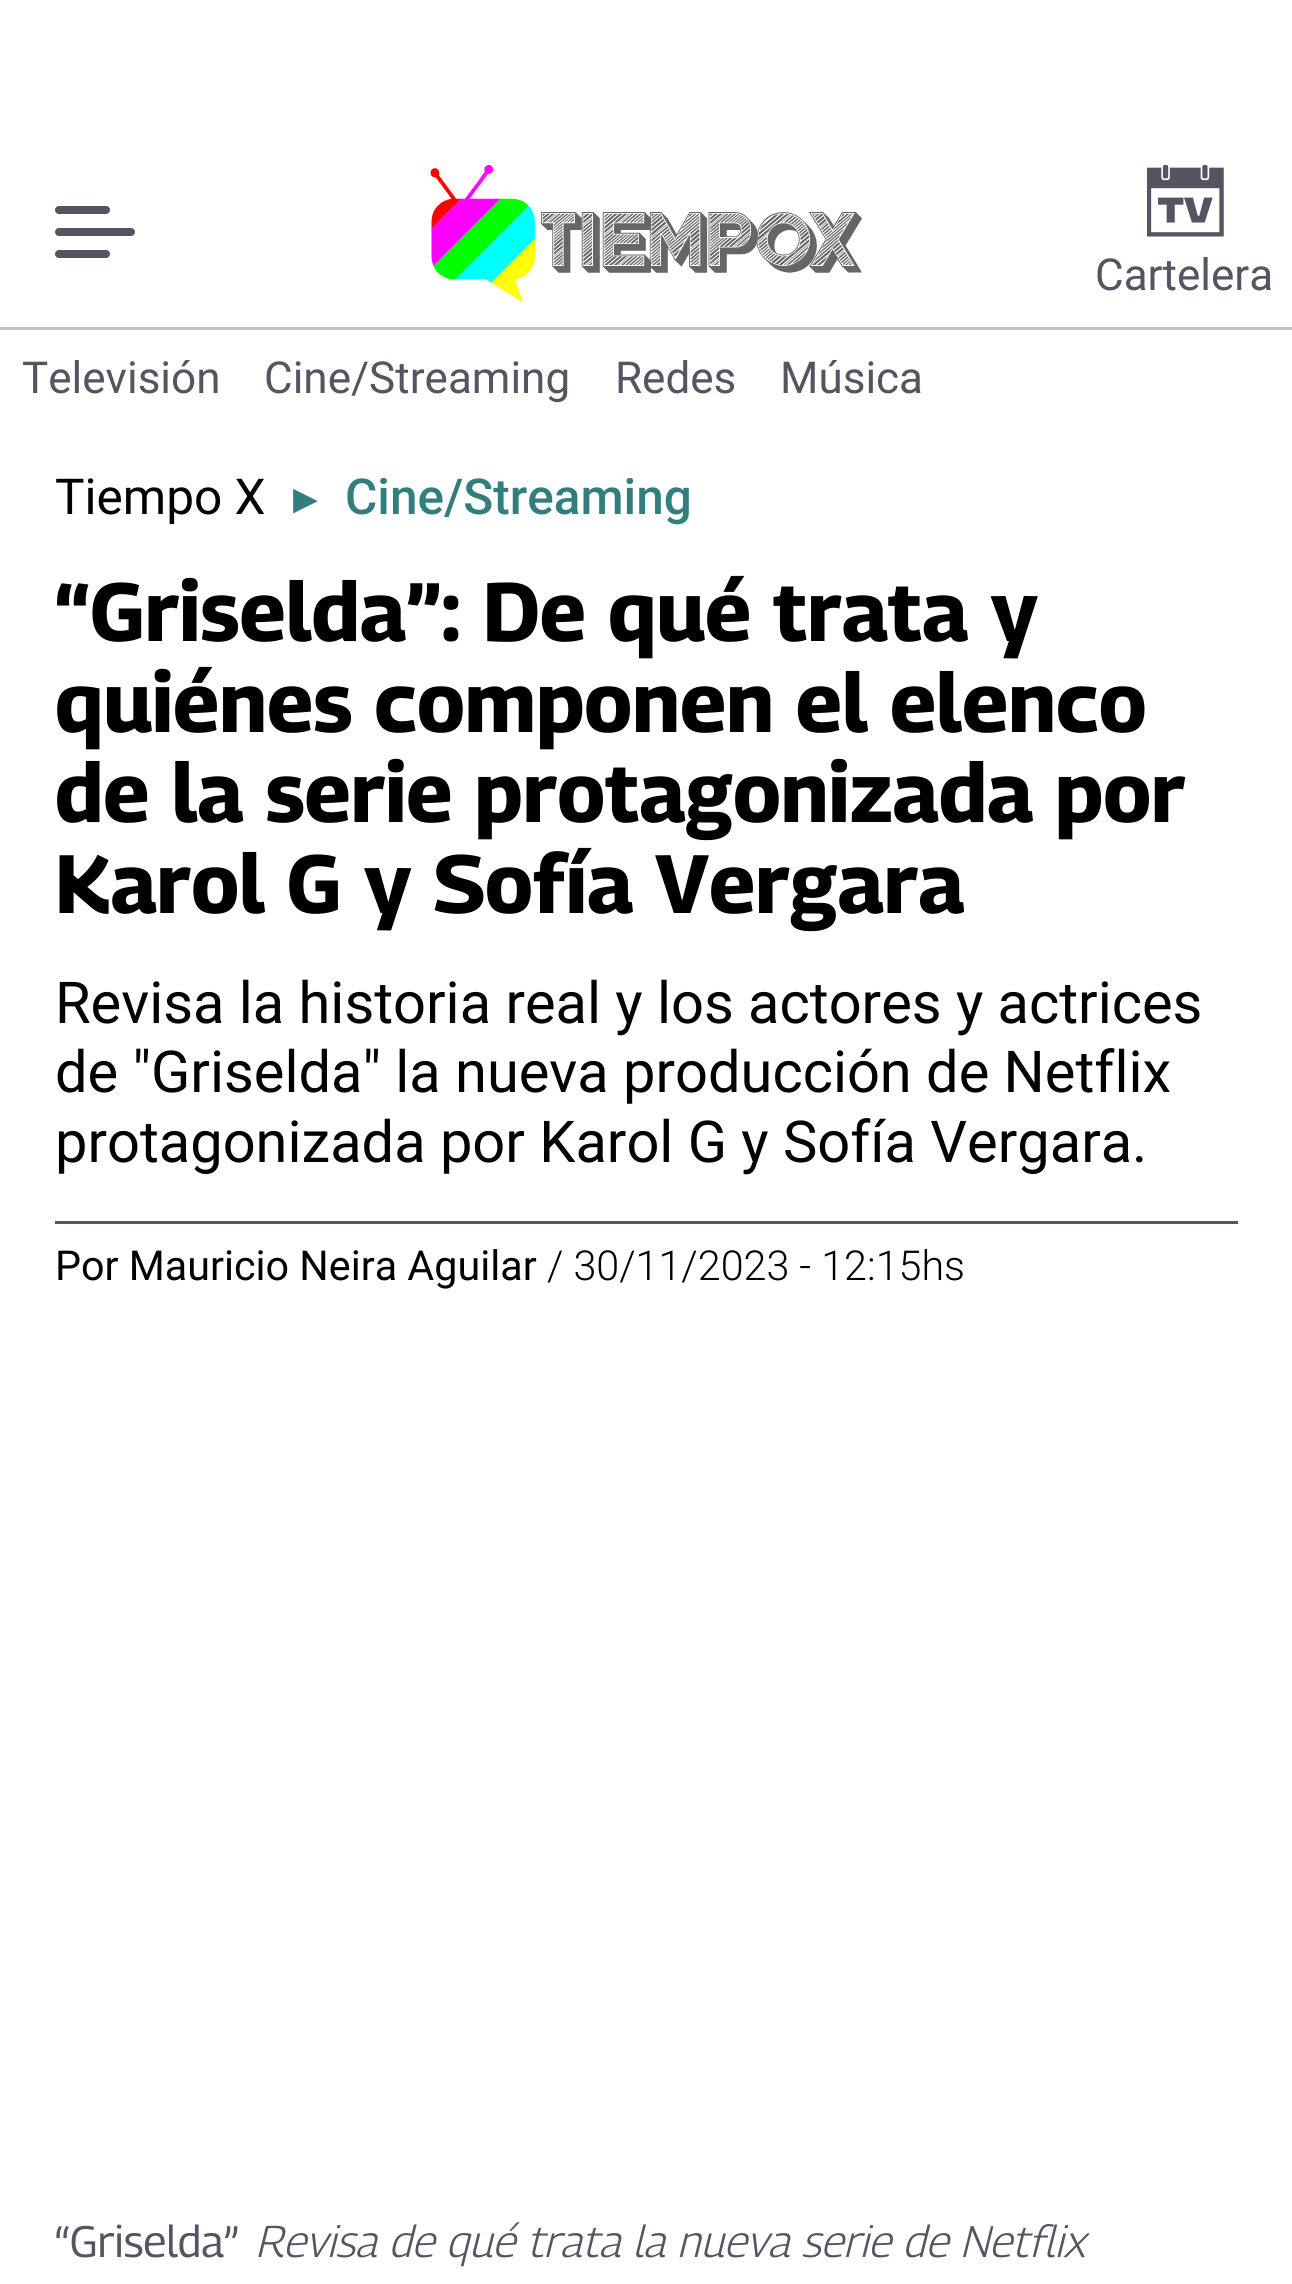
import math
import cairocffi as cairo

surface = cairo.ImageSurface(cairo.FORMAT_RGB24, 1292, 2284)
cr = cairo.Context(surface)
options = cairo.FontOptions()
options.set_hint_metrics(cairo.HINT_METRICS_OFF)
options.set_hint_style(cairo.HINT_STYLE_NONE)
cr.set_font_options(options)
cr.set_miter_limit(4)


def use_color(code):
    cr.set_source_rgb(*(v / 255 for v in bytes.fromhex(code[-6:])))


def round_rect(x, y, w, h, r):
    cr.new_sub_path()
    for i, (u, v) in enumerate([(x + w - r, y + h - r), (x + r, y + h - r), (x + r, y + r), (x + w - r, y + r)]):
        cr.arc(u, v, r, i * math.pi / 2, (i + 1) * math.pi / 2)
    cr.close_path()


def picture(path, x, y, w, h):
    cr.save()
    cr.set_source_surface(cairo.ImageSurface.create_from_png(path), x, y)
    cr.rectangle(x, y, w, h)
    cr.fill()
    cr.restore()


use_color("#ffffff")
cr.paint()
use_color("#c2c2cf")
cr.rectangle(0, 327, 1292, 3)
cr.fill()
use_color("#545462")
round_rect(55, 206, 55, 8, 4)
cr.fill()
round_rect(55, 228, 80, 8, 4)
cr.fill()
round_rect(55, 250, 55, 8, 4)
cr.fill()
picture("img1.png", 430, 165, 432, 138)
picture("img2.png", 1147, 165, 77, 72)
cr.select_font_face("Roboto")
cr.set_font_size(44)
cr.move_to(1095, 290)
cr.show_text("Cartelera")
cr.move_to(22, 393)
cr.show_text("Televisión")
cr.move_to(264, 393)
cr.show_text("Cine/Streaming")
cr.move_to(615, 393)
cr.show_text("Redes")
cr.move_to(780, 393)
cr.show_text("Música")
cr.set_font_size(49.5)
use_color("#000000")
cr.move_to(55, 514)
cr.show_text("Tiempo X")
cr.select_font_face("DejaVu Sans")
use_color("#327d7e")
cr.move_to(293, 514)
cr.show_text("▸")
cr.select_font_face("Roboto Medium")
cr.move_to(345, 514)
cr.show_text("Cine/Streaming")
cr.select_font_face("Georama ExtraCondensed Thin", cairo.FONT_SLANT_NORMAL, cairo.FONT_WEIGHT_BOLD)
cr.set_font_size(82.5)
use_color("#000000")
cr.move_to(55, 641)
cr.show_text("“Griselda”: De qué trata y")
cr.move_to(55, 732)
cr.show_text("quiénes componen el elenco")
cr.move_to(55, 822)
cr.show_text("de la serie protagonizada por")
cr.move_to(55, 913)
cr.show_text("Karol G y Sofía Vergara")
cr.select_font_face("Roboto")
cr.set_font_size(57.75)
cr.move_to(55, 1023)
cr.show_text("Revisa la historia real y los actores y actrices")
cr.move_to(55, 1092)
cr.show_text("de \"Griselda\" la nueva producción de Netflix")
cr.move_to(55, 1162)
cr.show_text("protagonizada por Karol G y Sofía Vergara.")
use_color("#545462")
cr.rectangle(55, 1221, 1183, 3)
cr.fill()
cr.set_font_size(41.25)
use_color("#000000")
cr.move_to(55, 1280)
cr.show_text("Por Mauricio Neira Aguilar")
cr.select_font_face("Roboto Light")
cr.move_to(547, 1280)
cr.show_text("/ 30/11/2023 - 12:15hs")
cr.select_font_face("Georama ExtraCondensed Thin")
cr.set_font_size(44)
use_color("#545462")
cr.move_to(55, 2257)
cr.show_text("“Griselda”")
cr.select_font_face("Georama ExtraCondensed Thin Light", cairo.FONT_SLANT_ITALIC)
cr.move_to(255, 2257)
cr.show_text("Revisa de qué trata la nueva serie de Netflix")
surface.write_to_png("result.png")
